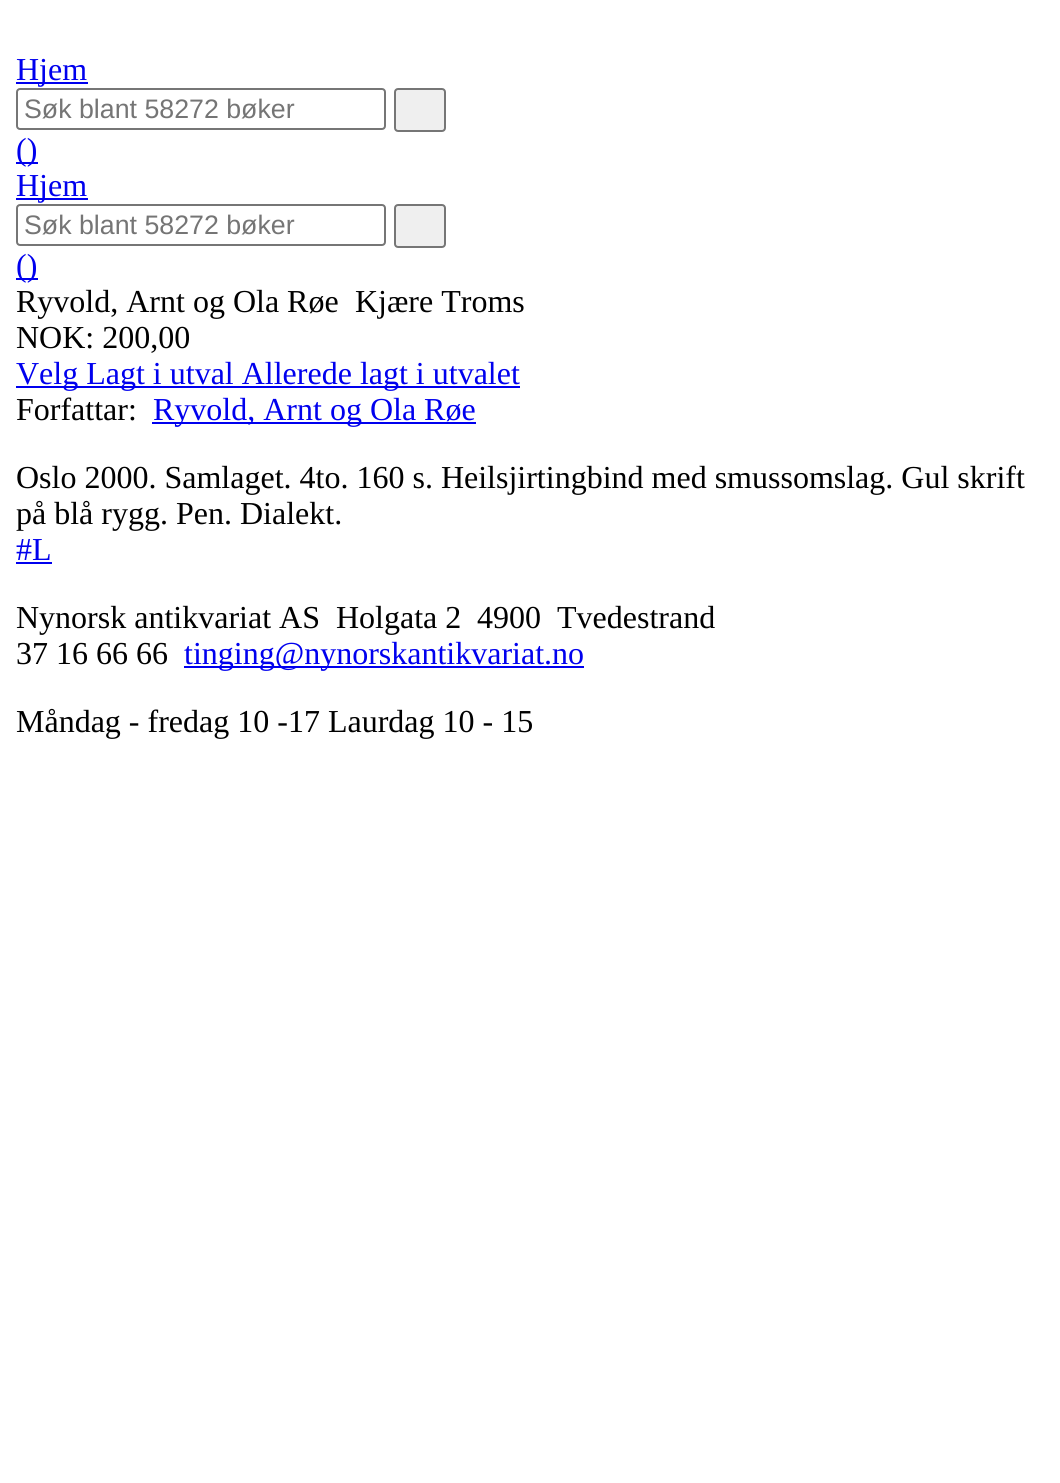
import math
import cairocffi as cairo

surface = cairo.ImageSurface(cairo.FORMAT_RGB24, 1060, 1483)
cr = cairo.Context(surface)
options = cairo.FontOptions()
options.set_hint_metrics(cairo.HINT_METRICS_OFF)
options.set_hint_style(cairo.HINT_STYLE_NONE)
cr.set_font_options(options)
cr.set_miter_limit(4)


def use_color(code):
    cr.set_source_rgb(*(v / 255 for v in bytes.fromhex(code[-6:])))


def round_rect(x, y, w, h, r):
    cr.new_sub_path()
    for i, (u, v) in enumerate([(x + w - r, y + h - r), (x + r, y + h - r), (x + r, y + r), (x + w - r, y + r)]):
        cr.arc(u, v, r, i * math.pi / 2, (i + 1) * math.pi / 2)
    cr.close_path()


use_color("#ffffff")
cr.paint()
use_color("#0000ee")
cr.rectangle(16, 82, 72, 2)
cr.fill()
cr.select_font_face("Liberation Serif")
cr.set_font_size(32)
cr.move_to(16, 80)
cr.show_text("Hjem")
round_rect(17, 89, 368, 40, 3)
use_color("#767676")
cr.stroke()
cr.select_font_face("Liberation Sans")
cr.set_font_size(26.75)
use_color("#757575")
cr.move_to(24, 118)
cr.show_text("Søk blant 58272 bøker")
use_color("#efefef")
round_rect(395, 89, 50, 42, 3)
cr.fill_preserve()
use_color("#767676")
cr.stroke()
use_color("#0000ee")
cr.rectangle(16, 162, 22, 2)
cr.fill()
cr.select_font_face("Liberation Serif")
cr.set_font_size(32)
cr.move_to(16, 160)
cr.show_text("()")
cr.rectangle(16, 198, 72, 2)
cr.fill()
cr.move_to(16, 196)
cr.show_text("Hjem")
round_rect(17, 205, 368, 40, 3)
use_color("#767676")
cr.stroke()
cr.select_font_face("Liberation Sans")
cr.set_font_size(26.75)
use_color("#757575")
cr.move_to(24, 234)
cr.show_text("Søk blant 58272 bøker")
use_color("#efefef")
round_rect(395, 205, 50, 42, 3)
cr.fill_preserve()
use_color("#767676")
cr.stroke()
use_color("#0000ee")
cr.rectangle(16, 278, 22, 2)
cr.fill()
cr.select_font_face("Liberation Serif")
cr.set_font_size(32)
cr.move_to(16, 276)
cr.show_text("()")
use_color("#000000")
cr.move_to(16, 312)
cr.show_text("Ryvold, Arnt og Ola Røe")
cr.move_to(355, 312)
cr.show_text("Kjære Troms")
cr.move_to(16, 348)
cr.show_text("NOK: 200,00")
use_color("#0000ee")
cr.rectangle(16, 386, 504, 2)
cr.fill()
cr.move_to(16, 384)
cr.show_text("Velg Lagt i utval Allerede lagt i utvalet")
use_color("#000000")
cr.move_to(16, 420)
cr.show_text("Forfattar:")
use_color("#0000ee")
cr.rectangle(152, 422, 324, 2)
cr.fill()
cr.move_to(153, 420)
cr.show_text("Ryvold, Arnt og Ola Røe")
use_color("#000000")
cr.move_to(16, 488)
cr.show_text("Oslo 2000. Samlaget. 4to. 160 s. Heilsjirtingbind med smussomslag. Gul skrift")
cr.move_to(16, 524)
cr.show_text("på blå rygg. Pen. Dialekt.")
use_color("#0000ee")
cr.move_to(16, 560)
cr.show_text("#L")
cr.rectangle(16, 562, 36, 2)
cr.fill()
use_color("#000000")
cr.move_to(16, 628)
cr.show_text("Nynorsk antikvariat AS")
cr.move_to(336, 628)
cr.show_text("Holgata 2")
cr.move_to(477, 628)
cr.show_text("4900")
cr.move_to(557, 628)
cr.show_text("Tvedestrand")
cr.move_to(16, 664)
cr.show_text("37 16 66 66")
use_color("#0000ee")
cr.rectangle(184, 666, 400, 2)
cr.fill()
cr.move_to(184, 664)
cr.show_text("tinging@nynorskantikvariat.no")
use_color("#000000")
cr.move_to(16, 732)
cr.show_text("Måndag - fredag 10 -17 Laurdag 10 - 15")
surface.write_to_png("result.png")
